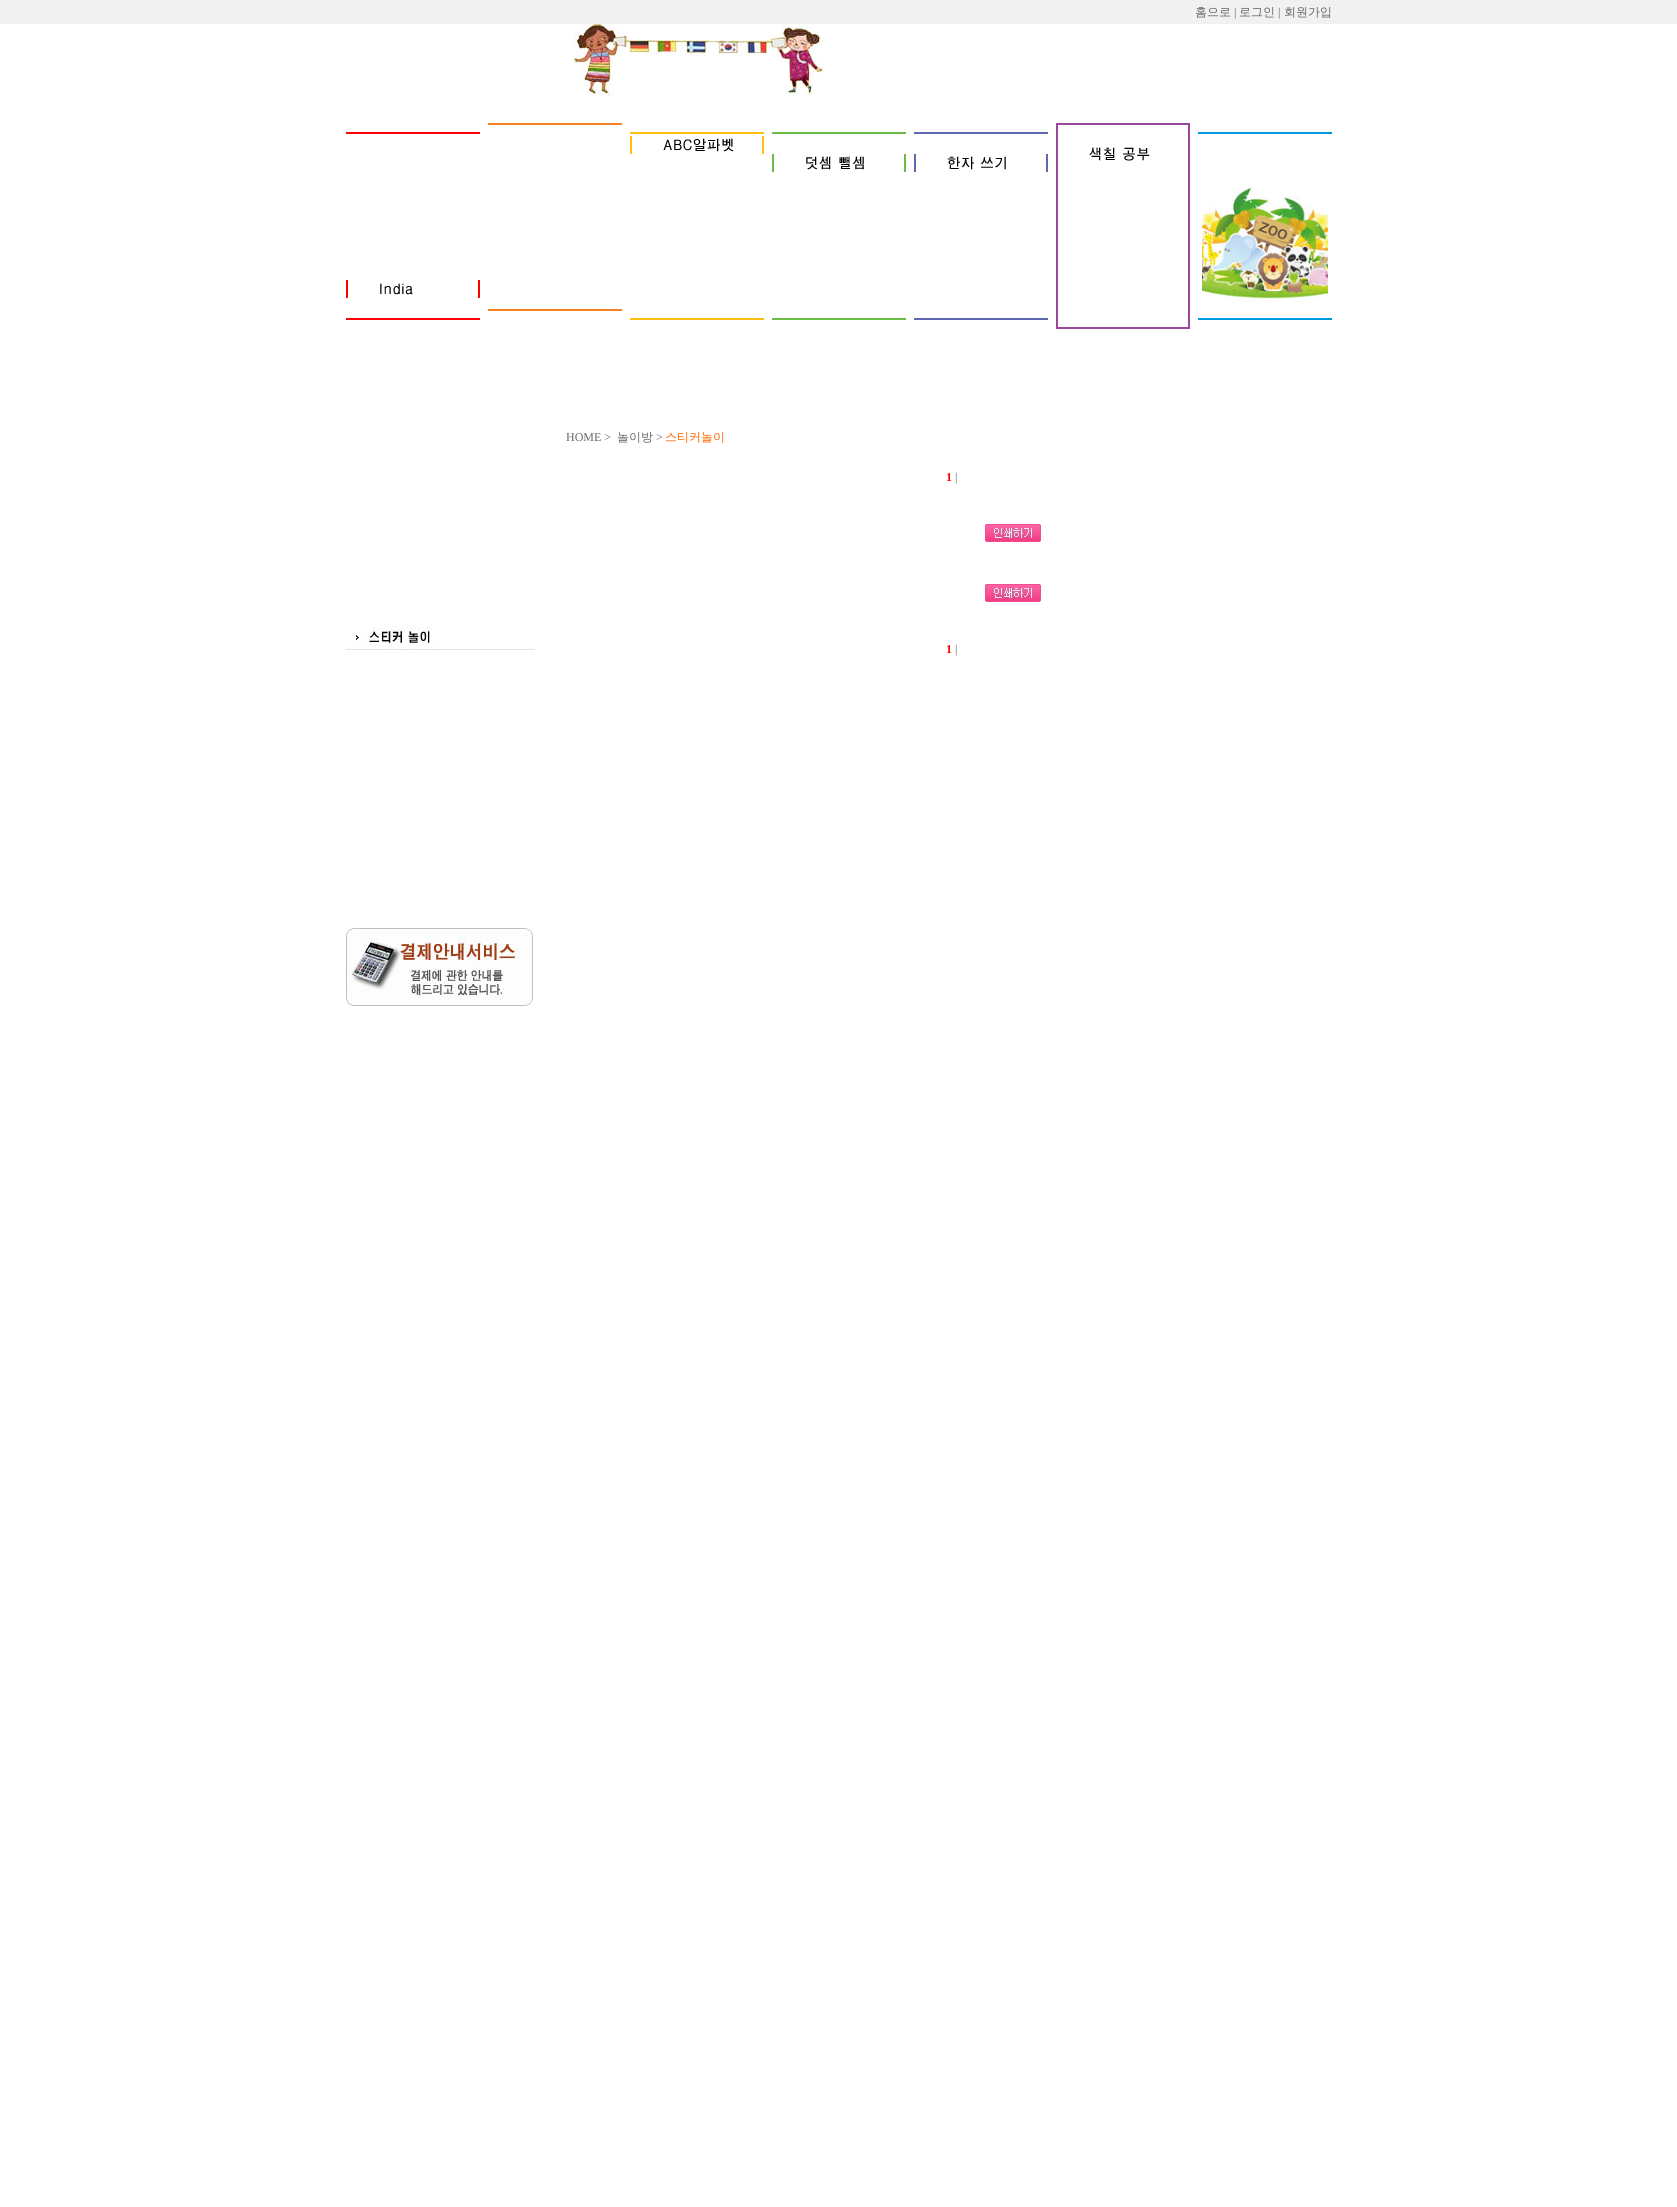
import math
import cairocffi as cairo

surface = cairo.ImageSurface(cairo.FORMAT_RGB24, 1677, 2207)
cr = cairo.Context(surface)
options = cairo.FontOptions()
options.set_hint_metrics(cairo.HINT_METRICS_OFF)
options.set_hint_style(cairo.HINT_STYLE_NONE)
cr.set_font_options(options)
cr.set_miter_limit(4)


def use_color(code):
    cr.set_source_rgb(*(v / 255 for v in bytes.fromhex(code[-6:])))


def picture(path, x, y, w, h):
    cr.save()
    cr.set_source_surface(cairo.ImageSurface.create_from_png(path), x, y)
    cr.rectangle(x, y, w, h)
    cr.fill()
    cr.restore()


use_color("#ffffff")
cr.paint()
use_color("#f1f1f1")
cr.rectangle(0, 0, 1677, 24)
cr.fill()
cr.select_font_face("WenQuanYi Zen Hei Medium")
cr.set_font_size(12)
use_color("#666666")
cr.move_to(1195, 16)
cr.show_text("홈으로")
cr.select_font_face("Liberation Serif")
cr.move_to(1234, 16)
cr.show_text("|")
cr.select_font_face("WenQuanYi Zen Hei Medium")
cr.move_to(1239, 16)
cr.show_text("로그인")
cr.select_font_face("Liberation Serif")
cr.move_to(1278, 16)
cr.show_text("|")
cr.select_font_face("WenQuanYi Zen Hei Medium")
cr.move_to(1284, 16)
cr.show_text("회원가입")
picture("img1.png", 573, 24, 250, 72)
use_color("#ff0000")
cr.rectangle(346, 132, 134, 2)
cr.fill()
picture("img2.png", 346, 280, 134, 18)
cr.rectangle(346, 318, 134, 2)
cr.fill()
use_color("#f68121")
cr.rectangle(488, 123, 134, 2)
cr.fill()
cr.rectangle(488, 309, 134, 2)
cr.fill()
use_color("#febf0f")
cr.rectangle(630, 132, 134, 2)
cr.fill()
picture("img3.png", 630, 136, 134, 18)
cr.rectangle(630, 318, 134, 2)
cr.fill()
use_color("#6cbb46")
cr.rectangle(772, 132, 134, 2)
cr.fill()
picture("img4.png", 772, 154, 134, 18)
cr.rectangle(772, 318, 134, 2)
cr.fill()
use_color("#6068b0")
cr.rectangle(914, 132, 134, 2)
cr.fill()
picture("img5.png", 914, 154, 134, 18)
cr.rectangle(914, 318, 134, 2)
cr.fill()
use_color("#9b479c")
cr.rectangle(1056, 123, 134, 2)
cr.fill()
picture("img6.png", 1056, 125, 134, 202)
picture("img7.png", 1089, 147, 61, 14)
cr.rectangle(1056, 327, 134, 2)
cr.fill()
use_color("#009bde")
cr.rectangle(1198, 132, 134, 2)
cr.fill()
picture("img8.png", 1202, 182, 126, 120)
cr.rectangle(1198, 318, 134, 2)
cr.fill()
cr.select_font_face("Liberation Serif")
use_color("#666666")
cr.move_to(566, 441)
cr.show_text("HOME >")
cr.select_font_face("WenQuanYi Zen Hei Medium")
cr.move_to(617, 441)
cr.show_text("놀이방")
cr.select_font_face("Liberation Serif")
cr.move_to(656, 441)
cr.show_text(">")
cr.select_font_face("WenQuanYi Zen Hei Medium")
use_color("#ff6600")
cr.move_to(665, 441)
cr.show_text("스티커놀이")
cr.select_font_face("Liberation Serif", cairo.FONT_SLANT_NORMAL, cairo.FONT_WEIGHT_BOLD)
use_color("#ff0000")
cr.move_to(946, 481)
cr.show_text("1")
cr.select_font_face("Liberation Serif")
use_color("#666666")
cr.move_to(955, 481)
cr.show_text("|")
picture("img9.png", 985, 524, 56, 18)
picture("img9.png", 985, 584, 56, 18)
cr.select_font_face("Liberation Serif", cairo.FONT_SLANT_NORMAL, cairo.FONT_WEIGHT_BOLD)
use_color("#ff0000")
cr.move_to(946, 653)
cr.show_text("1")
cr.select_font_face("Liberation Serif")
use_color("#666666")
cr.move_to(955, 653)
cr.show_text("|")
picture("img10.png", 346, 626, 189, 24)
picture("img11.png", 346, 928, 187, 78)
surface.write_to_png("result.png")
